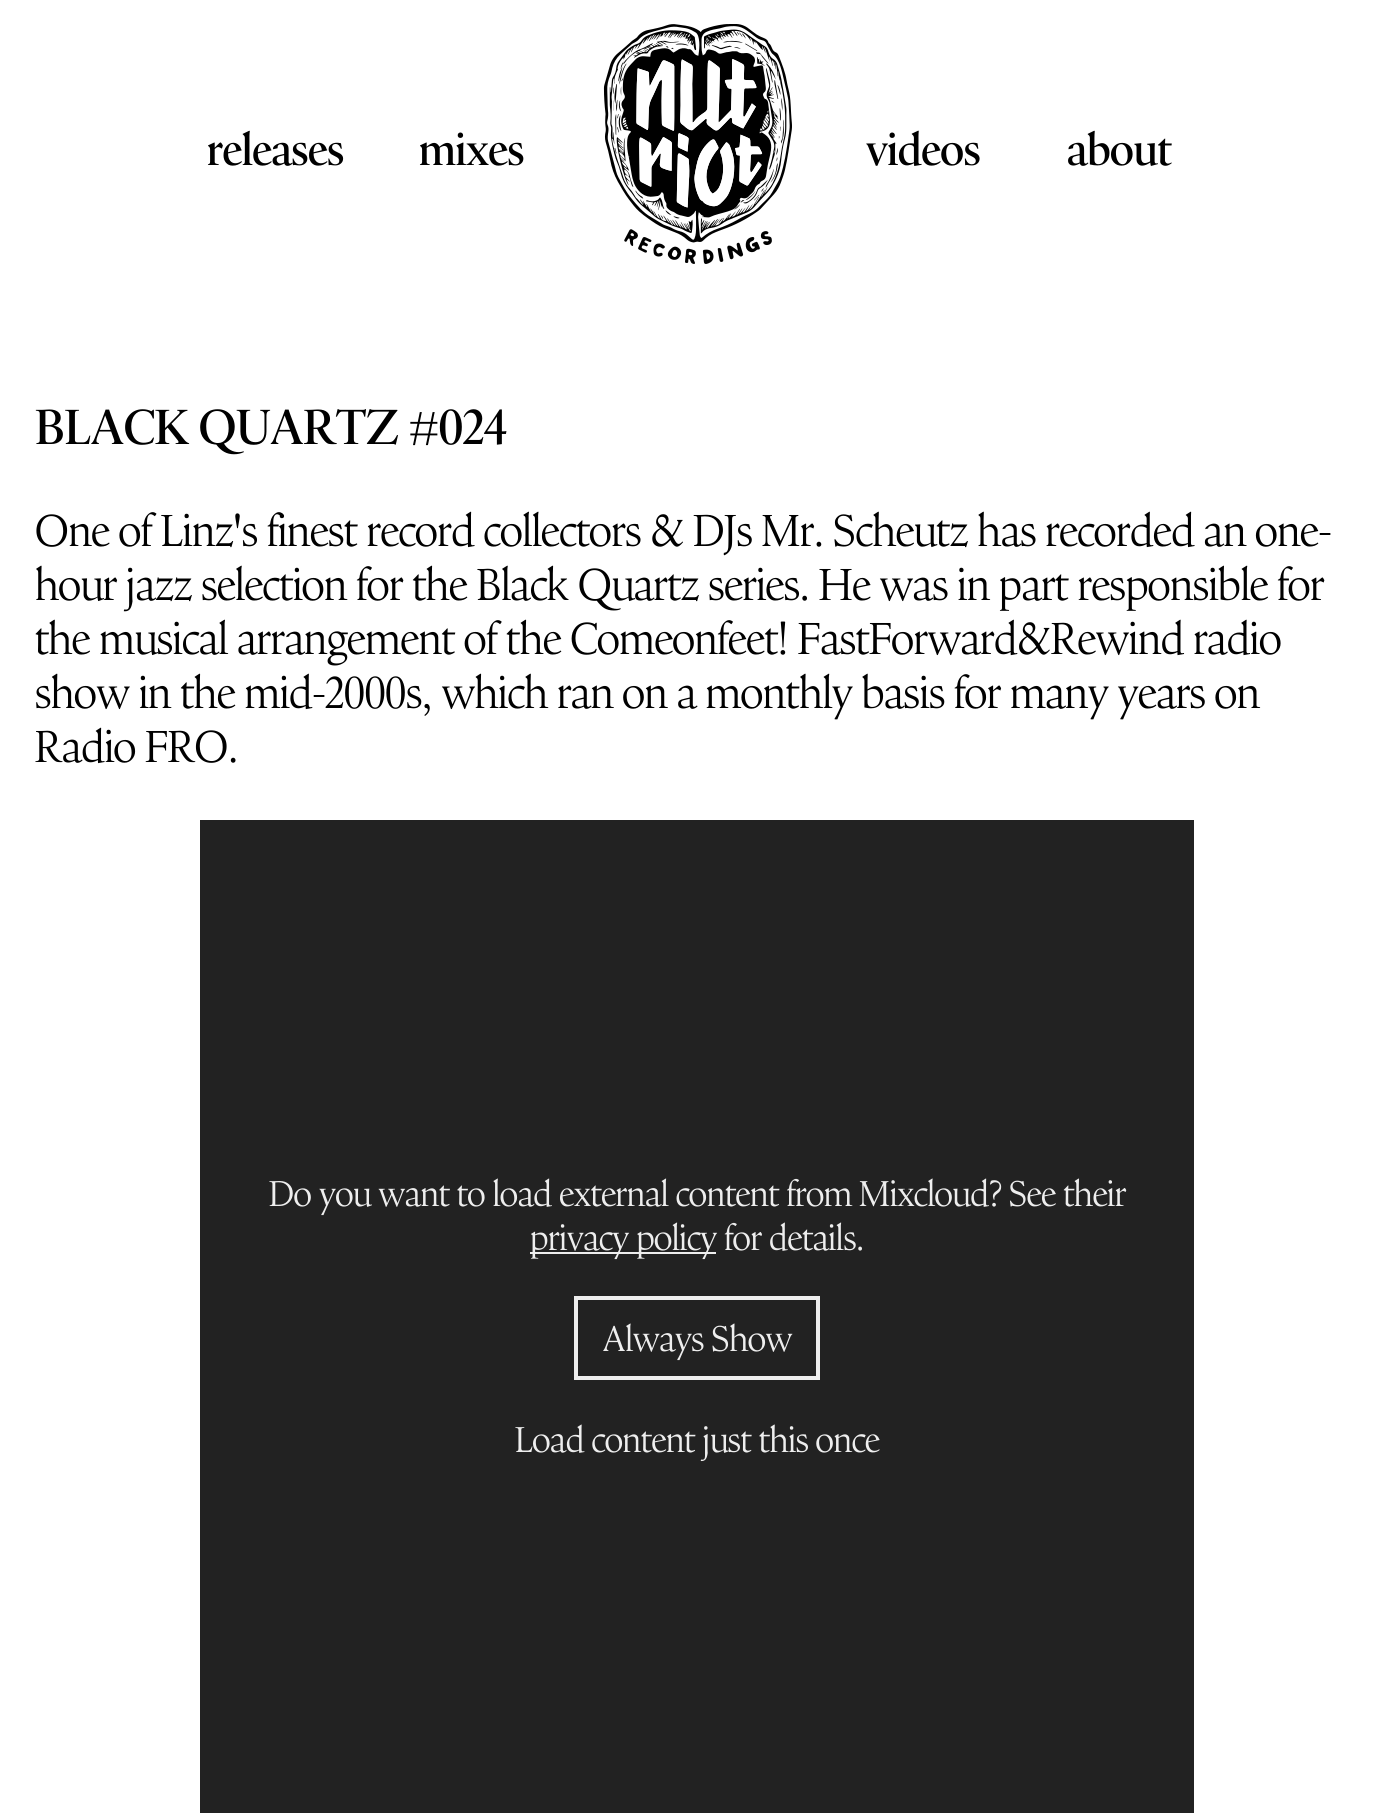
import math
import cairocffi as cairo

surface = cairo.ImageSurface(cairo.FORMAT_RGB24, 1394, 1813)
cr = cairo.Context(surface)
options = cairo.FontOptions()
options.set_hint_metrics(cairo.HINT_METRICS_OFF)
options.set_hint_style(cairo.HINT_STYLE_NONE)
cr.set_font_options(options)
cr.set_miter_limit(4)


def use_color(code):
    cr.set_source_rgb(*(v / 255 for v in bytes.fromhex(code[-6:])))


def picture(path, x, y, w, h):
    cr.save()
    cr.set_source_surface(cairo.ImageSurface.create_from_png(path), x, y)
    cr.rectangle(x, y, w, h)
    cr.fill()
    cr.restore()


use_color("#ffffff")
cr.paint()
cr.select_font_face("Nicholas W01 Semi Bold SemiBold")
cr.set_font_size(46.1)
use_color("#000000")
cr.move_to(207, 165)
cr.show_text("releases")
cr.move_to(419, 165)
cr.show_text("mixes")
picture("img1.png", 603, 24, 189, 240)
cr.move_to(866, 165)
cr.show_text("videos")
cr.move_to(1067, 165)
cr.show_text("about")
cr.set_font_size(50.75)
cr.move_to(35, 444)
cr.show_text("BLACK QUARTZ #024")
cr.select_font_face("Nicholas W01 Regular")
cr.set_font_size(46.1)
cr.move_to(35, 546)
cr.show_text("One of Linz's finest record collectors & DJs Mr. Scheutz has recorded an one-")
cr.move_to(35, 600)
cr.show_text("hour jazz selection for the Black Quartz series. He was in part responsible for")
cr.move_to(35, 654)
cr.show_text("the musical arrangement of the Comeonfeet! FastForward&Rewind radio")
cr.move_to(35, 708)
cr.show_text("show in the mid-2000s, which ran on a monthly basis for many years on")
cr.move_to(35, 762)
cr.show_text("Radio FRO.")
use_color("#222222")
cr.rectangle(200, 820, 994, 993)
cr.fill()
cr.set_font_size(36.9)
use_color("#eeeeee")
cr.move_to(269, 1206)
cr.show_text("Do you want to load external content from")
cr.move_to(859, 1206)
cr.show_text("Mixcloud? See their")
cr.rectangle(530, 1252, 186, 2)
cr.fill()
cr.move_to(530, 1250)
cr.show_text("privacy policy for details.")
cr.rectangle(576, 1298, 242, 80)
cr.set_line_width(4)
cr.stroke()
cr.move_to(603, 1351)
cr.show_text("Always Show")
cr.move_to(515, 1452)
cr.show_text("Load content just this once")
surface.write_to_png("result.png")
